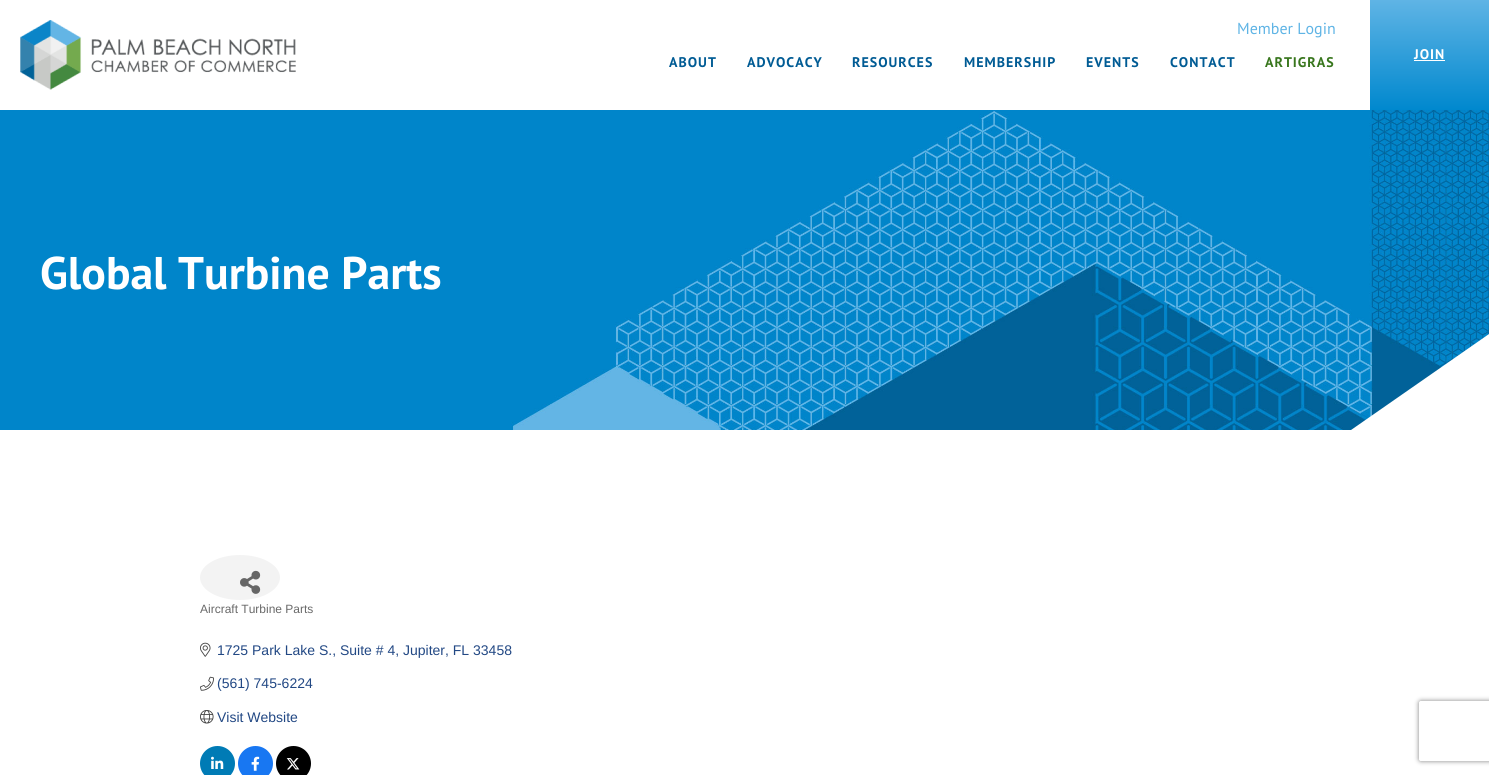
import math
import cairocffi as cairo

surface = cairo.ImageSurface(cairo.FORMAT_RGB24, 1489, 775)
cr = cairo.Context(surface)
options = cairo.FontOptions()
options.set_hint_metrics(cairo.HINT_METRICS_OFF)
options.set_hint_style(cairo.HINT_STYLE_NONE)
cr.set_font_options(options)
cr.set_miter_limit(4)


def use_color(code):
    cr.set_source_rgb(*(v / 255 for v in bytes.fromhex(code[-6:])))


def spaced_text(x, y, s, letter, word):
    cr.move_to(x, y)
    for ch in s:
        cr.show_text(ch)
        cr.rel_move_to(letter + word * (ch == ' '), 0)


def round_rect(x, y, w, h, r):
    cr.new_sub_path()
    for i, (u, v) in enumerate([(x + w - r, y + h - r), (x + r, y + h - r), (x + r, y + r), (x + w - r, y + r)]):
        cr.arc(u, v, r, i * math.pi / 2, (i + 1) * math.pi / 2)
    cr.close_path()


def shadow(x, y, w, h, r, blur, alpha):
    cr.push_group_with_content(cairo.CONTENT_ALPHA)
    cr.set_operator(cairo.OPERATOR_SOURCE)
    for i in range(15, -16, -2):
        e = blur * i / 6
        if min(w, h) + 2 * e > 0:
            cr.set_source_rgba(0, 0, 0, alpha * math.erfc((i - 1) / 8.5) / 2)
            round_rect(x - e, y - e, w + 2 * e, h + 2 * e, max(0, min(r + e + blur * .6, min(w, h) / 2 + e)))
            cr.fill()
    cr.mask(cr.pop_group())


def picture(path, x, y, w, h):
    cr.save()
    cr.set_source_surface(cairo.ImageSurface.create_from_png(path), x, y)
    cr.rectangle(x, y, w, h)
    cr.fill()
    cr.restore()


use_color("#ffffff")
cr.paint()
picture("img1.png", 20, 20, 276, 70)
cr.select_font_face("PT Sans")
cr.set_font_size(16)
use_color("#5fb4e5")
cr.move_to(1237, 34)
cr.show_text("Member Login")
cr.select_font_face("PT Sans", cairo.FONT_SLANT_NORMAL, cairo.FONT_WEIGHT_BOLD)
cr.set_font_size(14)
use_color("#005b94")
spaced_text(669, 67, "ABOUT", 1, 0)
spaced_text(747, 67, "ADVOCACY", 1, 0)
spaced_text(852, 67, "RESOURCES", 1, 0)
spaced_text(964, 67, "MEMBERSHIP", 1, 0)
spaced_text(1086, 67, "EVENTS", 1, 0)
spaced_text(1170, 67, "CONTACT", 1, 0)
use_color("#38761d")
spaced_text(1265, 67, "ARTIGRAS", 1, 0)
gradient = cairo.LinearGradient(1430, 0, 1430, 110)
gradient.add_color_stop_rgba(0, 0.373, 0.706, 0.898, 1)
gradient.add_color_stop_rgba(1, 0, 0.533, 0.808, 1)
cr.set_source(gradient)
cr.rectangle(1370, 0, 119, 110)
cr.fill()
use_color("#ffffff")
spaced_text(1414, 59, "JOIN", 1, 0)
cr.rectangle(1414, 60, 31, 1)
cr.fill()
picture("img2.png", 0, 110, 1489, 320)
cr.set_font_size(45.75)
cr.move_to(40, 289)
cr.show_text("Global Turbine Parts")
cr.new_path()
cr.move_to(1489, 334)
cr.line_to(1351, 430)
cr.line_to(1489, 430)
cr.close_path()
cr.fill()
use_color("#f3f3f3")
cr.new_path()
cr.move_to(240, 555)
cr.curve_to(262, 555, 280, 565, 280, 577.5)
cr.curve_to(280, 590, 262, 600, 240, 600)
cr.curve_to(218, 600, 200, 590, 200, 577.5)
cr.curve_to(200, 565, 218, 555, 240, 555)
cr.close_path()
cr.fill()
picture("img3.png", 240, 570, 21, 24)
cr.select_font_face("Liberation Sans")
cr.set_font_size(12)
use_color("#696969")
cr.move_to(200, 613)
cr.show_text("Aircraft Turbine Parts")
picture("img4.png", 200, 642, 11, 15)
cr.set_font_size(14)
use_color("#224884")
cr.move_to(217, 655)
cr.show_text("1725 Park Lake S., Suite # 4, Jupiter, FL 33458")
picture("img5.png", 200, 676, 14, 15)
cr.move_to(217, 688)
cr.show_text("(561) 745-6224")
picture("img6.png", 200, 710, 14, 14)
cr.move_to(217, 722)
cr.show_text("Visit Website")
use_color("#007bb5")
cr.new_path()
cr.arc(217.5, 763.5, 17.5, 0, 2 * math.pi)
cr.fill()
picture("img7.png", 211, 756, 13, 13)
use_color("#1877f2")
cr.arc(255.5, 763.5, 17.5, 0, 2 * math.pi)
cr.fill()
picture("img8.png", 251, 756, 9, 15)
use_color("#000000")
cr.arc(293.5, 763.5, 17.5, 0, 2 * math.pi)
cr.fill()
picture("img9.png", 286, 758, 14, 12)
cr.save()
cr.set_fill_rule(cairo.FILL_RULE_EVEN_ODD)
cr.new_path()
cr.move_to(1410, 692)
cr.line_to(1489, 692)
cr.line_to(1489, 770)
cr.line_to(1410, 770)
cr.close_path()
cr.move_to(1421, 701)
cr.line_to(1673, 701)
cr.curve_to(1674, 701, 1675, 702, 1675, 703)
cr.line_to(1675, 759)
cr.curve_to(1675, 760, 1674, 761, 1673, 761)
cr.line_to(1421, 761)
cr.curve_to(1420, 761, 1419, 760, 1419, 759)
cr.line_to(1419, 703)
cr.curve_to(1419, 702, 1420, 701, 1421, 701)
cr.close_path()
cr.clip()
use_color("#808080")
shadow(1419, 701, 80, 60, 2, 2.5, 1)
cr.restore()
surface.write_to_png("result.png")
